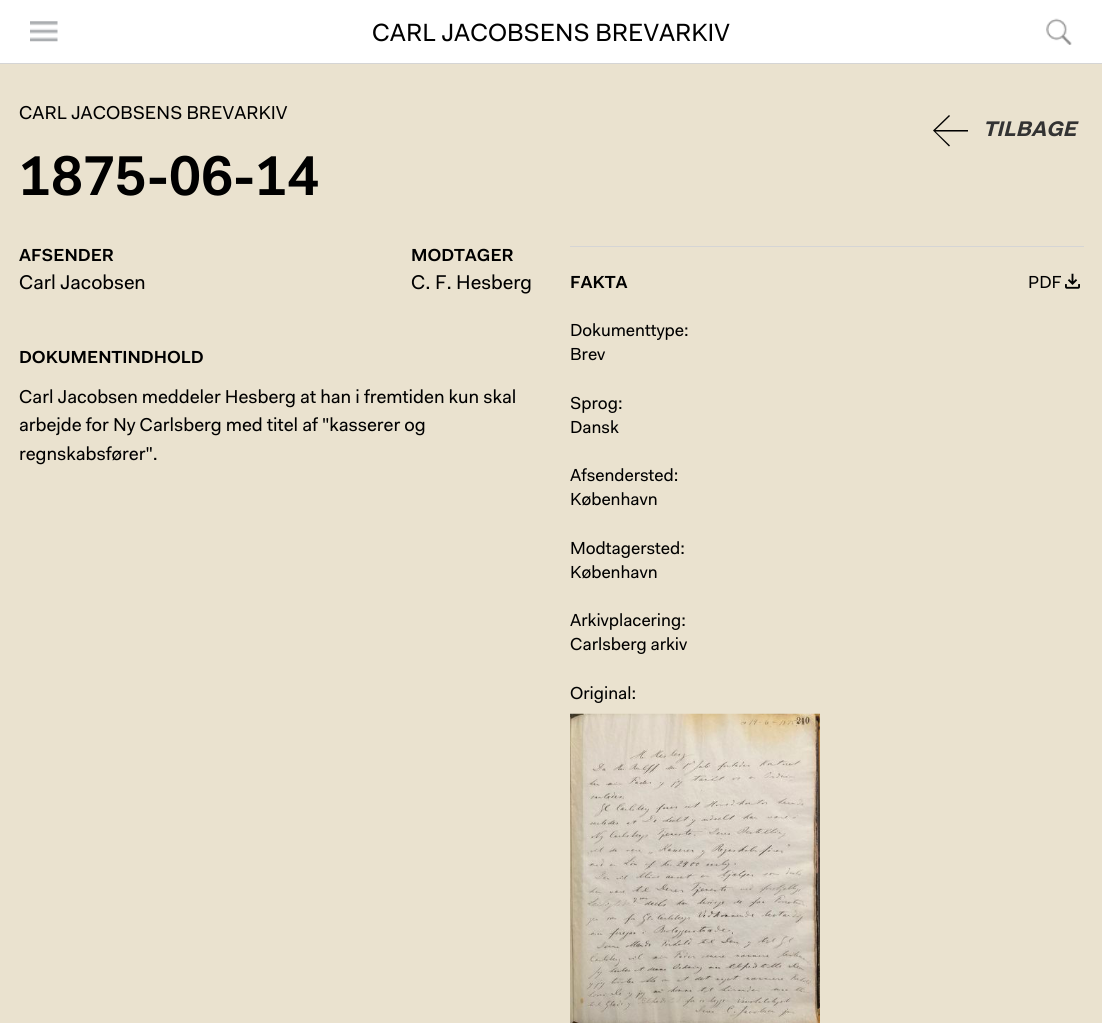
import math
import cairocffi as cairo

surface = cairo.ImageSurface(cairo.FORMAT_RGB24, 1102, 1023)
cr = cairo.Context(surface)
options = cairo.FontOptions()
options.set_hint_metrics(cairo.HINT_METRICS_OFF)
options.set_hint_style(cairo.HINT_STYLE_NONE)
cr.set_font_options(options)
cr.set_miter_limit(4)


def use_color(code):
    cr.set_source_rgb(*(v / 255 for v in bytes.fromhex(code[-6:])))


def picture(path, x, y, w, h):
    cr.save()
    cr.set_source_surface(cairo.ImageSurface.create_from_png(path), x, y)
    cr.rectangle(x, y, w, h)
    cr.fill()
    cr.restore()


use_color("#ffffff")
cr.paint()
use_color("#d5d5d5")
cr.rectangle(0, 63, 1102, 1)
cr.fill()
picture("img1.png", 30, 21, 28, 21)
cr.select_font_face("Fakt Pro")
cr.set_font_size(25)
use_color("#000000")
cr.move_to(372, 41)
cr.show_text("CARL JACOBSENS BREVARKIV")
picture("img2.png", 1046, 18, 26, 27)
use_color("#eae2cf")
cr.rectangle(0, 64, 1102, 959)
cr.fill()
cr.set_font_size(18.75)
use_color("#000000")
cr.move_to(19, 119)
cr.show_text("CARL JACOBSENS BREVARKIV")
cr.select_font_face("Fakt Pro SemiBold")
cr.set_font_size(56.25)
cr.move_to(19, 195)
cr.show_text("1875-06-14")
cr.new_path()
cr.move_to(935.5, 131.5)
cr.line_to(950, 145.5)
cr.line_to(949, 146.5)
cr.line_to(933, 130.5)
cr.line_to(949, 115)
cr.line_to(950, 116)
cr.line_to(935.5, 130)
cr.line_to(968, 130)
cr.line_to(968, 131.5)
cr.close_path()
cr.fill()
cr.select_font_face("Fakt Pro", cairo.FONT_SLANT_ITALIC, cairo.FONT_WEIGHT_BOLD)
cr.set_font_size(21.25)
use_color("#333333")
cr.move_to(983, 136)
cr.show_text("TILBAGE")
cr.select_font_face("Fakt Pro SemiBold")
cr.set_font_size(17.5)
use_color("#000000")
cr.move_to(19, 261)
cr.show_text("AFSENDER")
cr.select_font_face("Fakt Pro")
cr.set_font_size(20)
cr.move_to(19, 289)
cr.show_text("Carl Jacobsen")
cr.select_font_face("Fakt Pro SemiBold")
cr.set_font_size(17.5)
cr.move_to(411, 261)
cr.show_text("MODTAGER")
cr.select_font_face("Fakt Pro")
cr.set_font_size(20)
cr.move_to(411, 289)
cr.show_text("C. F. Hesberg")
cr.select_font_face("Fakt Pro SemiBold")
cr.set_font_size(17.5)
cr.move_to(19, 363)
cr.show_text("DOKUMENTINDHOLD")
cr.select_font_face("Fakt Pro")
cr.set_font_size(18.75)
cr.move_to(19, 403)
cr.show_text("Carl Jacobsen meddeler Hesberg at han i fremtiden kun skal")
cr.move_to(19, 431)
cr.show_text("arbejde for Ny Carlsberg med titel af \"kasserer og")
cr.move_to(19, 460)
cr.show_text("regnskabsfører\".")
use_color("#d5d5d5")
cr.rectangle(570, 246, 514, 1)
cr.fill()
cr.select_font_face("Fakt Pro SemiBold")
cr.set_font_size(17.5)
use_color("#000000")
cr.move_to(570, 288)
cr.show_text("FAKTA")
picture("img3.png", 1065, 273, 15, 16)
cr.select_font_face("Fakt Pro")
cr.move_to(1028, 288)
cr.show_text("PDF")
cr.move_to(570, 336)
cr.show_text("Dokumenttype:")
cr.move_to(570, 360)
cr.show_text("Brev")
cr.move_to(570, 409)
cr.show_text("Sprog:")
cr.move_to(570, 433)
cr.show_text("Dansk")
cr.move_to(570, 481)
cr.show_text("Afsendersted:")
cr.move_to(570, 505)
cr.show_text("København")
cr.move_to(570, 554)
cr.show_text("Modtagersted:")
cr.move_to(570, 578)
cr.show_text("København")
cr.move_to(570, 626)
cr.show_text("Arkivplacering:")
cr.move_to(570, 650)
cr.show_text("Carlsberg arkiv")
cr.move_to(570, 699)
cr.show_text("Original:")
picture("img4.png", 570, 713, 250, 310)
surface.write_to_png("result.png")
